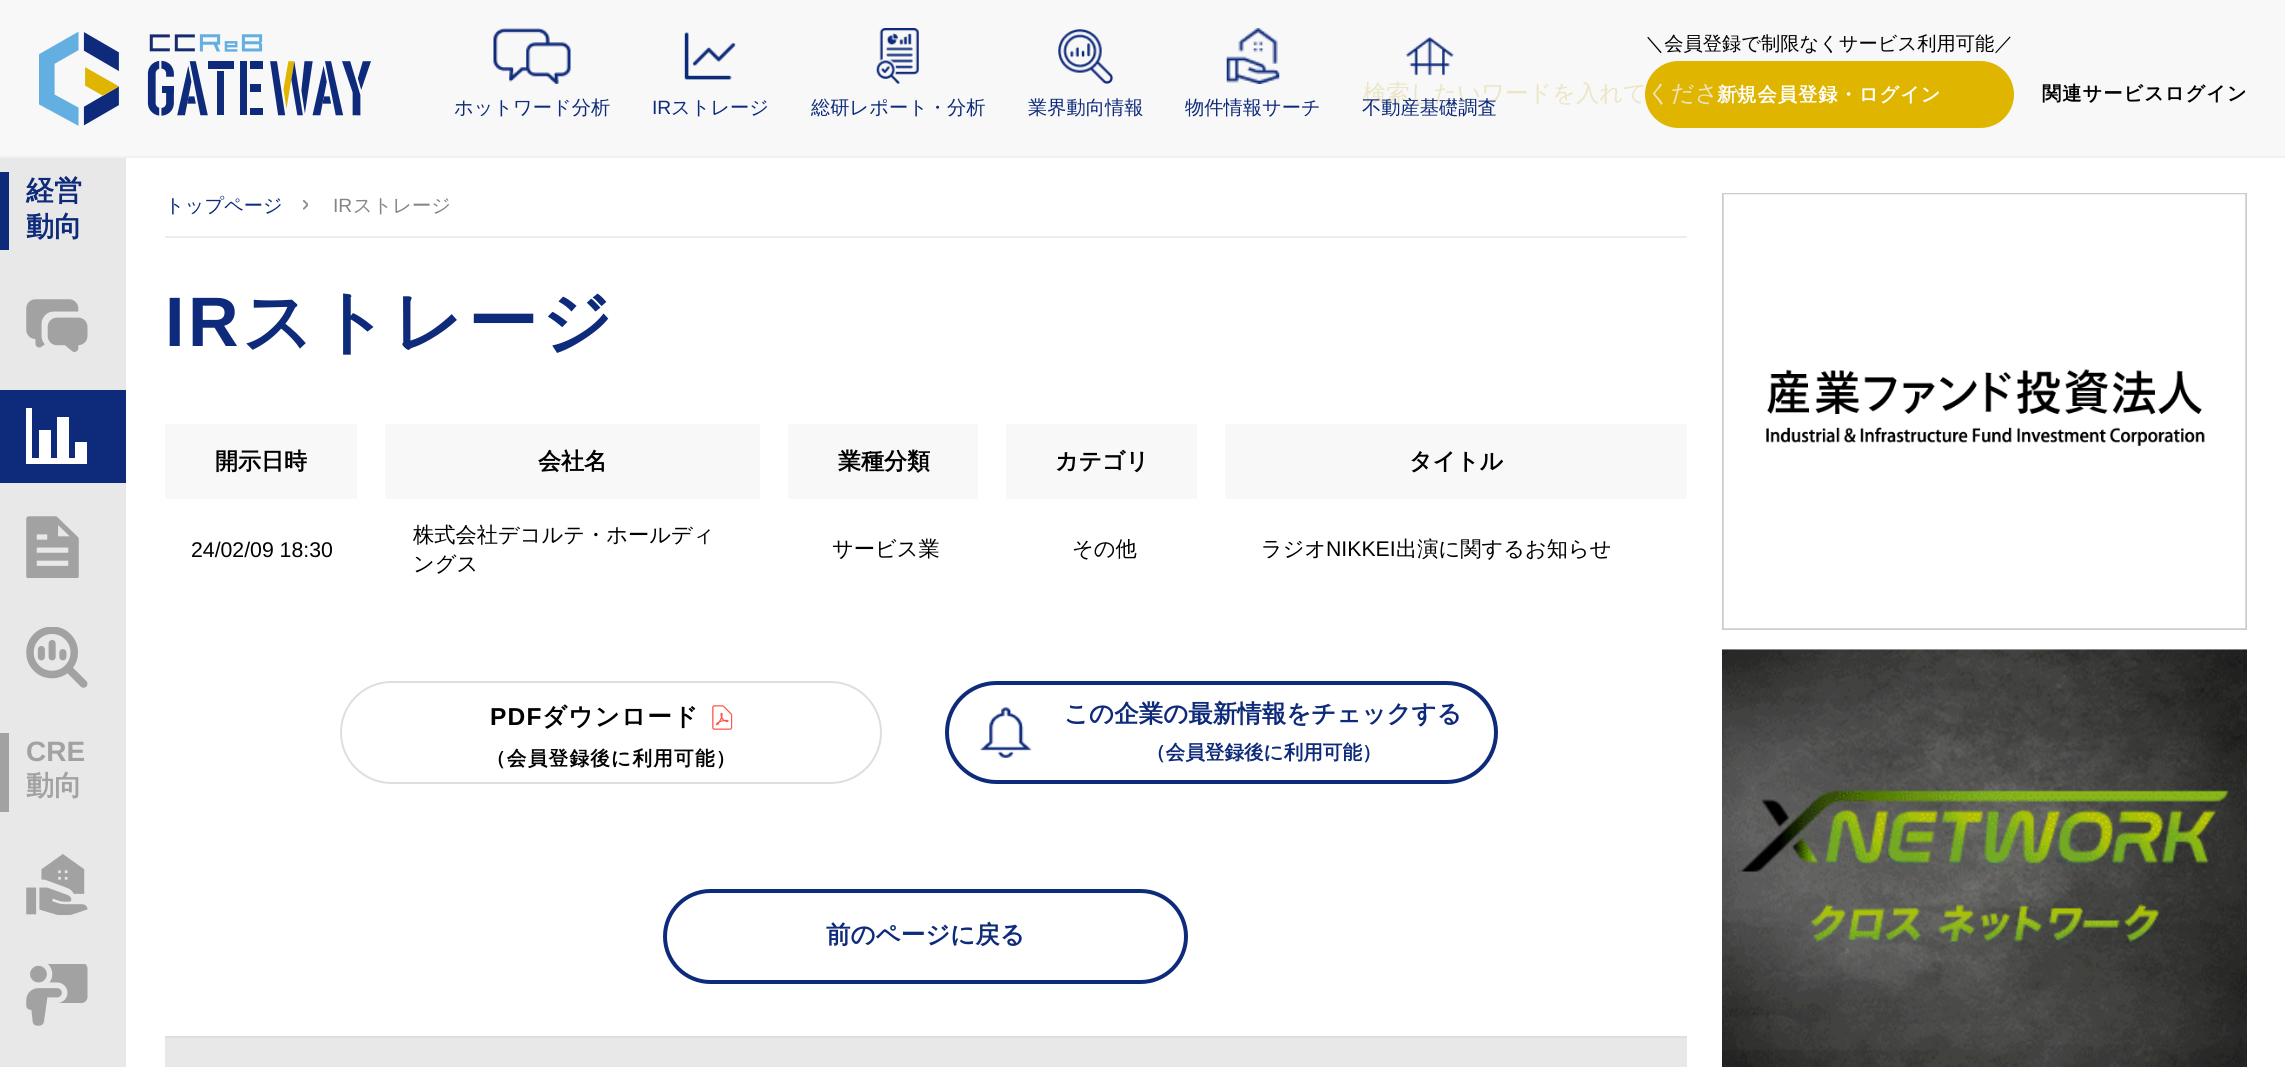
import math
import cairocffi as cairo

surface = cairo.ImageSurface(cairo.FORMAT_RGB24, 2285, 1067)
cr = cairo.Context(surface)
options = cairo.FontOptions()
options.set_hint_metrics(cairo.HINT_METRICS_OFF)
options.set_hint_style(cairo.HINT_STYLE_NONE)
cr.set_font_options(options)
cr.set_miter_limit(4)


def use_color(code):
    cr.set_source_rgb(*(v / 255 for v in bytes.fromhex(code[-6:])))


def spaced_text(x, y, s, letter, word):
    cr.move_to(x, y)
    for ch in s:
        cr.show_text(ch)
        cr.rel_move_to(letter + word * (ch == ' '), 0)


def round_rect(x, y, w, h, r):
    cr.new_sub_path()
    for i, (u, v) in enumerate([(x + w - r, y + h - r), (x + r, y + h - r), (x + r, y + r), (x + w - r, y + r)]):
        cr.arc(u, v, r, i * math.pi / 2, (i + 1) * math.pi / 2)
    cr.close_path()


def picture(path, x, y, w, h):
    cr.save()
    cr.set_source_surface(cairo.ImageSurface.create_from_png(path), x, y)
    cr.rectangle(x, y, w, h)
    cr.fill()
    cr.restore()


use_color("#ffffff")
cr.paint()
use_color("#f8f8f8")
cr.rectangle(0, 0, 2285, 156)
cr.fill()
use_color("#f1f1f1")
cr.rectangle(0, 156, 2285, 2)
cr.fill()
picture("img1.png", 39, 32, 332, 94)
use_color("#e0b500")
round_rect(1645, 61, 369, 67, 33.5)
cr.fill()
cr.select_font_face("WenQuanYi Zen Hei", cairo.FONT_SLANT_NORMAL, cairo.FONT_WEIGHT_BOLD)
cr.set_font_size(19.25)
use_color("#ffffff")
spaced_text(1717, 101, "新規会員登録・ログイン", 1, 0)
cr.select_font_face("WenQuanYi Zen Hei Medium")
cr.set_font_size(23.3)
use_color("#ece5c5")
cr.move_to(1363, 101)
cr.show_text("検索したいワードを入れてください")
cr.set_font_size(19.25)
use_color("#000000")
cr.move_to(1645, 50)
cr.show_text("＼会員登録で制限なくサービス利用可能／")
cr.select_font_face("WenQuanYi Zen Hei", cairo.FONT_SLANT_NORMAL, cairo.FONT_WEIGHT_BOLD)
spaced_text(2042, 100, "関連サービスログイン", 1, 0)
picture("img2.png", 493, 28, 78, 56)
cr.select_font_face("WenQuanYi Zen Hei Medium")
use_color("#0e2a7a")
cr.move_to(454, 114)
cr.show_text("ホットワード分析")
picture("img3.png", 684, 32, 52, 48)
cr.select_font_face("Liberation Sans")
cr.move_to(652, 114)
cr.show_text("IR")
cr.select_font_face("WenQuanYi Zen Hei Medium")
cr.move_to(671, 114)
cr.show_text("ストレージ")
picture("img4.png", 876, 28, 43, 56)
cr.move_to(811, 114)
cr.show_text("総研レポート・分析")
picture("img5.png", 1058, 29, 55, 55)
cr.move_to(1028, 114)
cr.show_text("業界動向情報")
picture("img6.png", 1226, 28, 54, 56)
cr.move_to(1185, 114)
cr.show_text("物件情報サーチ")
picture("img7.png", 1405, 37, 49, 39)
cr.move_to(1362, 114)
cr.show_text("不動産基礎調査")
use_color("#e8e8e8")
cr.rectangle(0, 158, 126, 909)
cr.fill()
use_color("#0e2a7a")
cr.rectangle(0, 172, 9, 78)
cr.fill()
cr.select_font_face("WenQuanYi Zen Hei", cairo.FONT_SLANT_NORMAL, cairo.FONT_WEIGHT_BOLD)
cr.set_font_size(28)
cr.move_to(26, 200)
cr.show_text("経営")
cr.move_to(26, 236)
cr.show_text("動向")
picture("img8.png", 26, 299, 62, 53)
cr.rectangle(0, 390, 126, 93)
cr.fill()
use_color("#ffffff")
cr.new_path()
cr.move_to(87, 464)
cr.line_to(26, 464)
cr.line_to(26, 408)
cr.line_to(32, 408)
cr.line_to(32, 458)
cr.line_to(39, 458)
cr.line_to(39, 430)
cr.line_to(51, 430)
cr.line_to(51, 458)
cr.line_to(57, 458)
cr.line_to(57, 417)
cr.line_to(69, 417)
cr.line_to(69, 458)
cr.line_to(75, 458)
cr.line_to(75, 442)
cr.line_to(87, 442)
cr.close_path()
cr.fill()
picture("img9.png", 26, 516, 53, 62)
picture("img10.png", 26, 627, 62, 61)
use_color("#a2a2a2")
cr.rectangle(0, 733, 9, 79)
cr.fill()
cr.select_font_face("Liberation Sans", cairo.FONT_SLANT_NORMAL, cairo.FONT_WEIGHT_BOLD)
cr.move_to(26, 761)
cr.show_text("CRE")
cr.select_font_face("WenQuanYi Zen Hei", cairo.FONT_SLANT_NORMAL, cairo.FONT_WEIGHT_BOLD)
cr.move_to(26, 795)
cr.show_text("動向")
picture("img11.png", 26, 854, 62, 61)
picture("img12.png", 26, 964, 62, 62)
use_color("#ededed")
cr.rectangle(165, 236, 1522, 2)
cr.fill()
cr.select_font_face("WenQuanYi Zen Hei Medium")
cr.set_font_size(19.25)
use_color("#0e2a7a")
cr.move_to(165, 212)
cr.show_text("トップページ")
picture("img13.png", 303, 200, 5, 10)
cr.select_font_face("Liberation Sans")
use_color("#848484")
cr.move_to(333, 212)
cr.show_text("IR")
cr.select_font_face("WenQuanYi Zen Hei Medium")
cr.move_to(353, 212)
cr.show_text("ストレージ")
cr.select_font_face("Liberation Sans", cairo.FONT_SLANT_NORMAL, cairo.FONT_WEIGHT_BOLD)
cr.set_font_size(70)
use_color("#0e2a7a")
spaced_text(165, 346, "IR", 3.5, 0)
cr.select_font_face("WenQuanYi Zen Hei", cairo.FONT_SLANT_NORMAL, cairo.FONT_WEIGHT_BOLD)
spaced_text(242, 346, "ストレージ", 3.5, 0)
use_color("#f8f8f8")
cr.rectangle(165, 424, 192, 75)
cr.fill()
cr.set_font_size(23)
use_color("#000000")
cr.move_to(215, 469)
cr.show_text("開示日時")
use_color("#f8f8f8")
cr.rectangle(385, 424, 375, 75)
cr.fill()
use_color("#000000")
cr.move_to(538, 469)
cr.show_text("会社名")
use_color("#f8f8f8")
cr.rectangle(788, 424, 190, 75)
cr.fill()
use_color("#000000")
cr.move_to(838, 469)
cr.show_text("業種分類")
use_color("#f8f8f8")
cr.rectangle(1006, 424, 191, 75)
cr.fill()
use_color("#000000")
cr.move_to(1055, 469)
cr.show_text("カテゴリ")
use_color("#f8f8f8")
cr.rectangle(1225, 424, 462, 75)
cr.fill()
use_color("#000000")
cr.move_to(1409, 469)
cr.show_text("タイトル")
cr.select_font_face("Liberation Sans")
cr.set_font_size(21.25)
cr.move_to(191, 557)
cr.show_text("24/02/09 18:30")
cr.select_font_face("WenQuanYi Zen Hei Medium")
cr.move_to(413, 542)
cr.show_text("株式会社デコルテ・ホールディ")
cr.move_to(413, 571)
cr.show_text("ングス")
cr.move_to(832, 556)
cr.show_text("サービス業")
cr.move_to(1072, 556)
cr.show_text("その他")
cr.move_to(1261, 556)
cr.show_text("ラジオ")
cr.select_font_face("Liberation Sans")
cr.move_to(1326, 556)
cr.show_text("NIKKEI")
cr.select_font_face("WenQuanYi Zen Hei Medium")
cr.move_to(1396, 556)
cr.show_text("出演に関するお知らせ")
round_rect(341, 682, 540, 101, 50.5)
use_color("#dedede")
cr.stroke()
cr.select_font_face("Liberation Sans", cairo.FONT_SLANT_NORMAL, cairo.FONT_WEIGHT_BOLD)
cr.set_font_size(24.5)
use_color("#000000")
spaced_text(490, 725, "PDF", 1.25, 0)
cr.select_font_face("WenQuanYi Zen Hei", cairo.FONT_SLANT_NORMAL, cairo.FONT_WEIGHT_BOLD)
spaced_text(542, 725, "ダウンロード", 1.25, 0)
picture("img14.png", 712, 705, 21, 25)
cr.set_font_size(19.6)
spaced_text(486, 765, "（会員登録後に利用可能）", 1.25, 0)
picture("img15.png", 980, 707, 52, 51)
round_rect(947, 683, 549, 99, 49.5)
use_color("#0e2a7a")
cr.set_line_width(4)
cr.stroke()
cr.set_font_size(24.5)
cr.move_to(1064, 722)
cr.show_text("この企業の最新情報をチェックする")
cr.set_font_size(19.6)
cr.move_to(1146, 759)
cr.show_text("（会員登録後に利用可能）")
round_rect(665, 891, 521, 91, 45.5)
cr.stroke()
cr.set_font_size(24.5)
cr.move_to(826, 943)
cr.show_text("前のページに戻る")
use_color("#e8e8e8")
cr.rectangle(165, 1038, 1522, 29)
cr.fill()
use_color("#dedede")
cr.rectangle(165, 1036, 1522, 2)
cr.fill()
cr.rectangle(1723, 194, 523, 435)
use_color("#cccccc")
cr.set_line_width(2)
cr.stroke()
picture("img16.png", 1723, 194, 523, 435)
picture("img17.png", 1722, 649, 525, 418)
surface.write_to_png("result.png")
